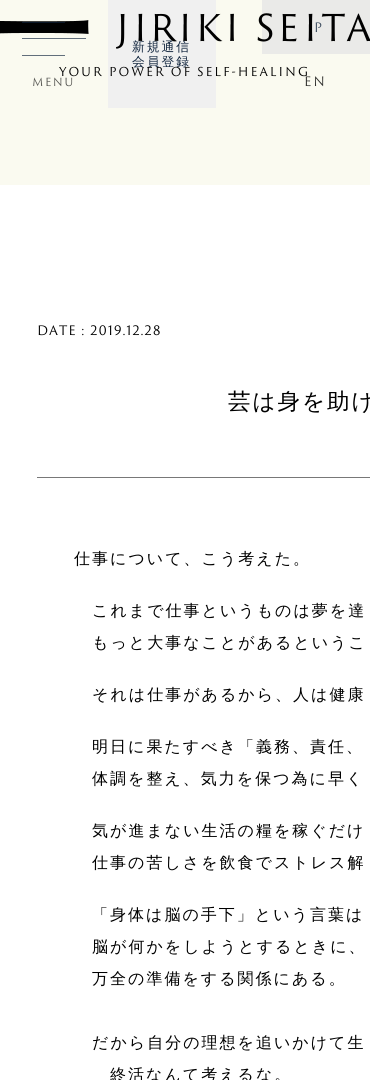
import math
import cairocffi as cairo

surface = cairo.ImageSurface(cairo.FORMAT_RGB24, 370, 1080)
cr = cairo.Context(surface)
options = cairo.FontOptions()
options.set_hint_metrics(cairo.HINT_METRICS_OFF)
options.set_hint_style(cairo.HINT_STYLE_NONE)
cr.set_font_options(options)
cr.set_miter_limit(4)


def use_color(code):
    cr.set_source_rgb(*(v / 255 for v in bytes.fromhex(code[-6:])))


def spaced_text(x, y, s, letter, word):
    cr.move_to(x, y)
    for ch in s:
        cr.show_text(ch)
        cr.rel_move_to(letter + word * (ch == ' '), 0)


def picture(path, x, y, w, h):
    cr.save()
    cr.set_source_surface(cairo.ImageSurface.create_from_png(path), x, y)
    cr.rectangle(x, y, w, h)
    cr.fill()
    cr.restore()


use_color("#ffffff")
cr.paint()
use_color("#fafaf0")
cr.rectangle(0, 0, 370, 185)
cr.fill()
use_color("#f0f0f0")
cr.rectangle(108, 0, 108, 108)
cr.fill()
cr.select_font_face("WenQuanYi Zen Hei Medium")
cr.set_font_size(12.75)
use_color("#0f233c")
spaced_text(132, 51, "新規通信", 2, 0)
spaced_text(132, 66, "会員登録", 2, 0)
use_color("#eaeae8")
cr.rectangle(262, 0, 108, 54)
cr.fill()
cr.select_font_face("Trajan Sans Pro")
use_color("#3e4e60")
spaced_text(314, 32, "P", 2, 0)
use_color("#323230")
spaced_text(304, 86, "EN", 2, 0)
picture("img1.png", 0, 13, 370, 36)
cr.set_font_size(12)
use_color("#000000")
spaced_text(59, 76, "YOUR POWER OF SELF-HEALING", 2, 0)
use_color("#0a1727")
cr.rectangle(22, 22, 43, 1)
cr.fill()
use_color("#616e7b")
cr.rectangle(22, 55, 43, 1)
cr.fill()
cr.rectangle(22, 38, 64, 1)
cr.fill()
cr.set_font_size(11)
use_color("#585854")
spaced_text(32, 86, "MENU", 1.5, 0)
cr.set_font_size(12.75)
use_color("#000000")
spaced_text(37, 335, "DATE : 2019.12.28", 1, 0)
cr.select_font_face("WenQuanYi Zen Hei Medium")
cr.set_font_size(22.5)
spaced_text(228, 409, "芸は身を助け", 2, 0)
use_color("#787878")
cr.rectangle(37, 477, 333, 1)
cr.fill()
cr.set_font_size(16)
use_color("#000000")
spaced_text(74, 564, "仕事について、こう考えた。", 2, 0)
spaced_text(92, 616, "これまで仕事というものは夢を達", 2, 0)
spaced_text(92, 648, "もっと大事なことがあるというこ", 2, 0)
spaced_text(92, 700, "それは仕事があるから、人は健康", 2, 0)
spaced_text(92, 752, "明日に果たすべき「義務、責任、", 2, 0)
spaced_text(92, 784, "体調を整え、気力を保つ為に早く", 2, 0)
spaced_text(92, 836, "気が進まない生活の糧を稼ぐだけ", 2, 0)
spaced_text(92, 868, "仕事の苦しさを飲食でストレス解", 2, 0)
spaced_text(92, 920, "「身体は脳の手下」という言葉は", 2, 0)
spaced_text(92, 952, "脳が何かをしようとするときに、", 2, 0)
spaced_text(92, 984, "万全の準備をする関係にある。", 2, 0)
spaced_text(92, 1048, "だから自分の理想を追いかけて生", 2, 0)
spaced_text(110, 1080, "終活なんて考えるな。", 2, 0)
use_color("#ffffff")
cr.new_path()
cr.move_to(346.5, 1053)
cr.line_to(338.5, 1045.5)
cr.line_to(339.5, 1044.5)
cr.line_to(347, 1052.5)
cr.close_path()
cr.fill()
surface.write_to_png("result.png")
